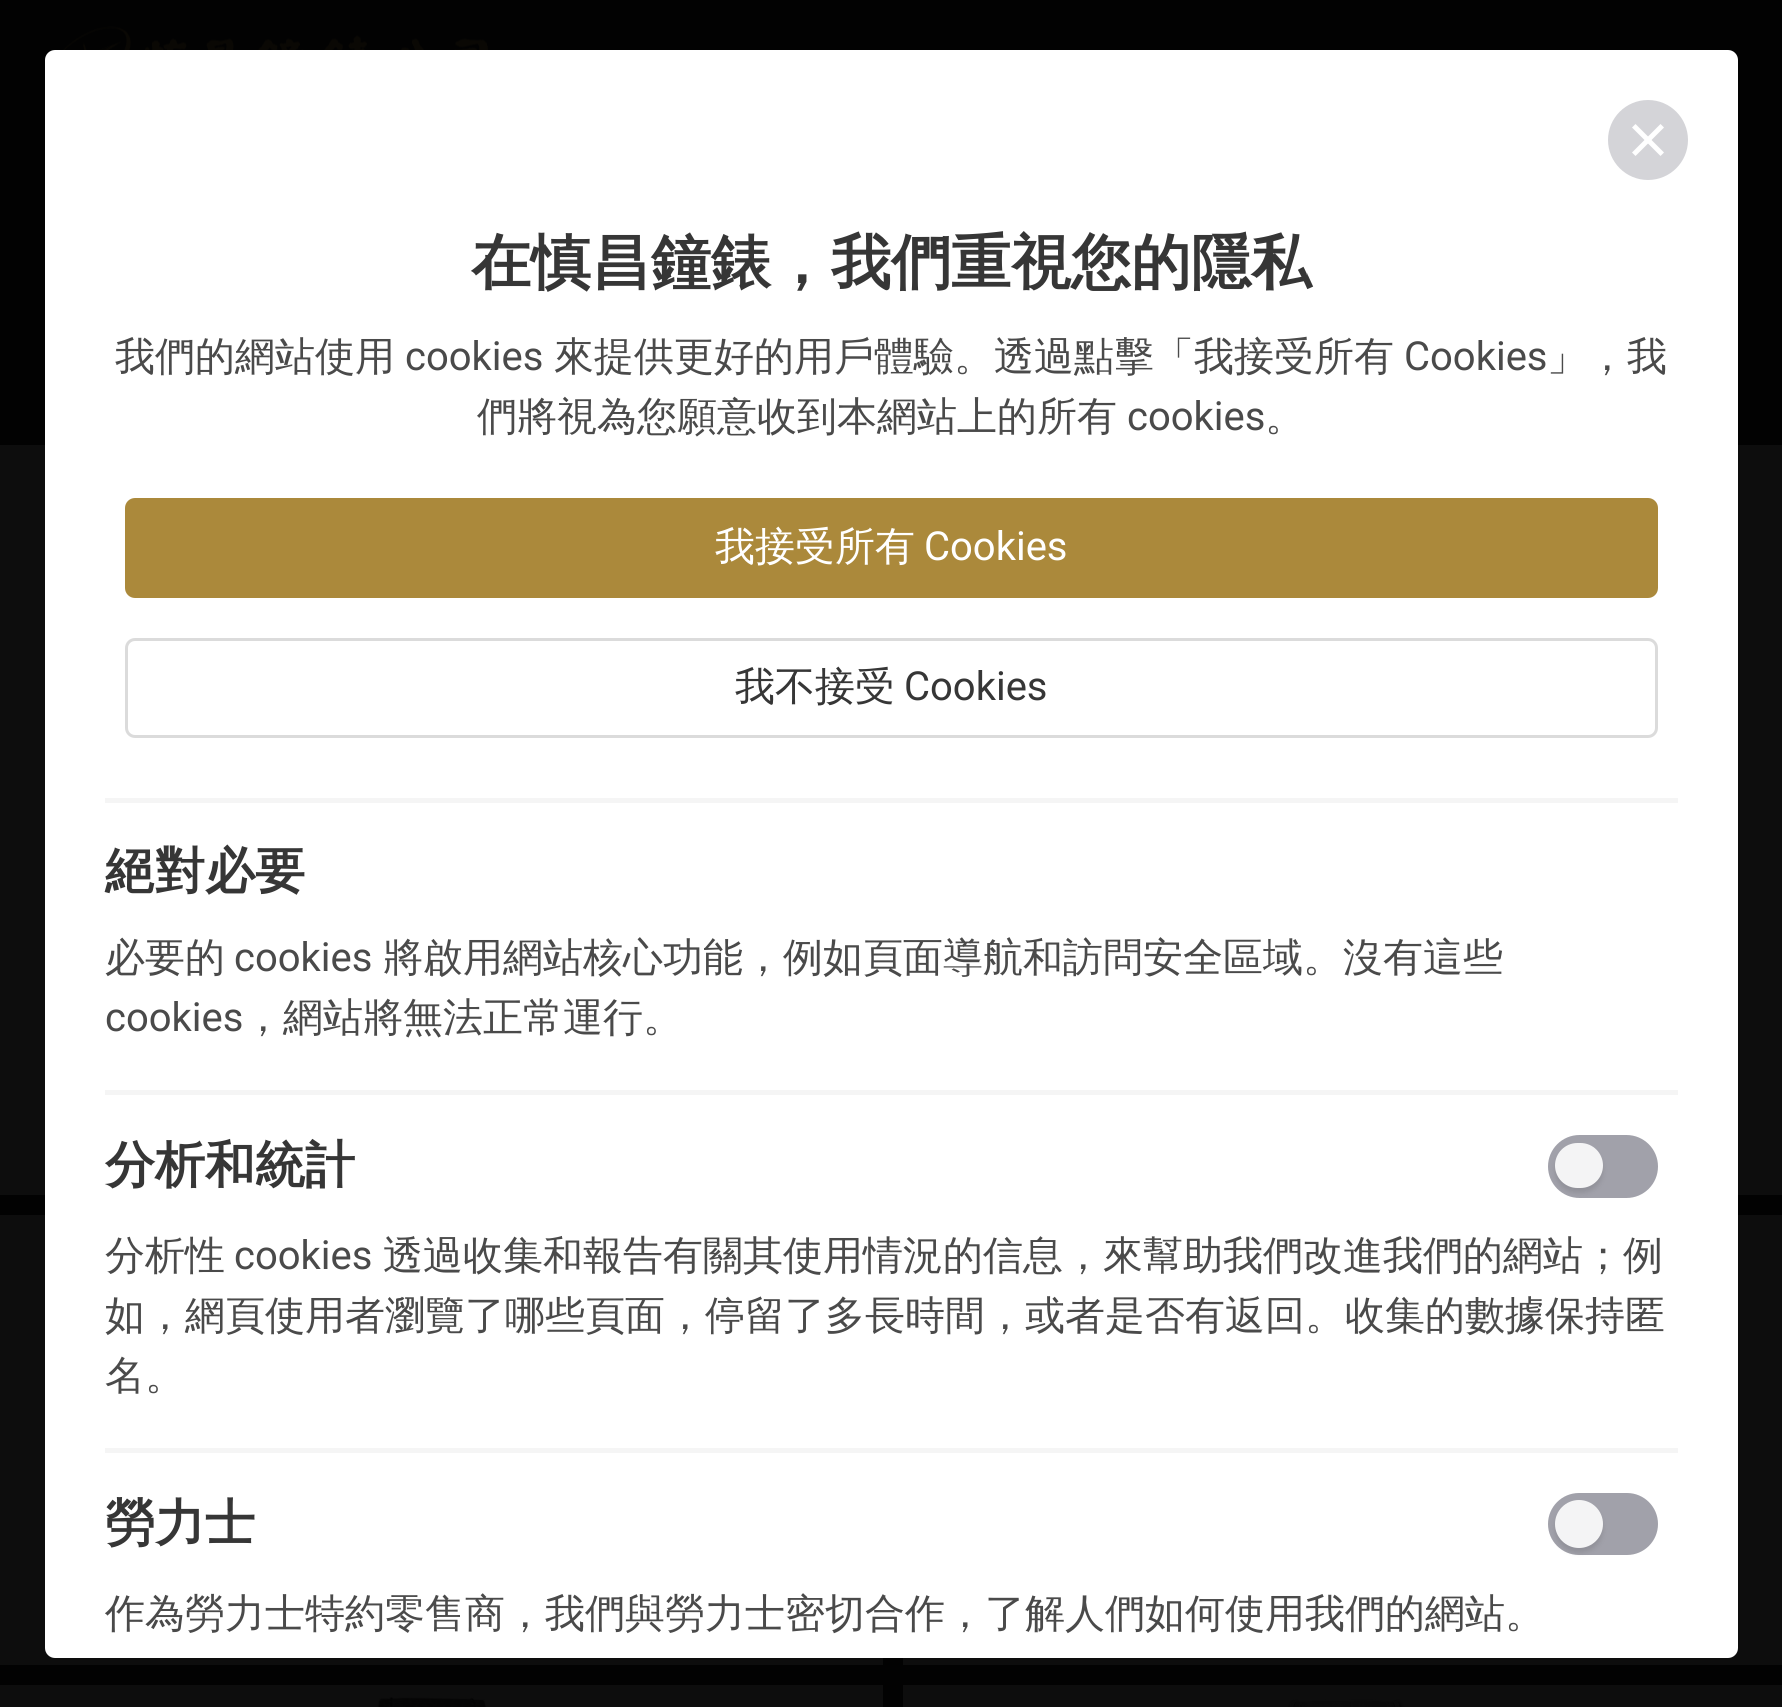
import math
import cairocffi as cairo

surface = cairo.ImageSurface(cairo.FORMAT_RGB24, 1782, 1707)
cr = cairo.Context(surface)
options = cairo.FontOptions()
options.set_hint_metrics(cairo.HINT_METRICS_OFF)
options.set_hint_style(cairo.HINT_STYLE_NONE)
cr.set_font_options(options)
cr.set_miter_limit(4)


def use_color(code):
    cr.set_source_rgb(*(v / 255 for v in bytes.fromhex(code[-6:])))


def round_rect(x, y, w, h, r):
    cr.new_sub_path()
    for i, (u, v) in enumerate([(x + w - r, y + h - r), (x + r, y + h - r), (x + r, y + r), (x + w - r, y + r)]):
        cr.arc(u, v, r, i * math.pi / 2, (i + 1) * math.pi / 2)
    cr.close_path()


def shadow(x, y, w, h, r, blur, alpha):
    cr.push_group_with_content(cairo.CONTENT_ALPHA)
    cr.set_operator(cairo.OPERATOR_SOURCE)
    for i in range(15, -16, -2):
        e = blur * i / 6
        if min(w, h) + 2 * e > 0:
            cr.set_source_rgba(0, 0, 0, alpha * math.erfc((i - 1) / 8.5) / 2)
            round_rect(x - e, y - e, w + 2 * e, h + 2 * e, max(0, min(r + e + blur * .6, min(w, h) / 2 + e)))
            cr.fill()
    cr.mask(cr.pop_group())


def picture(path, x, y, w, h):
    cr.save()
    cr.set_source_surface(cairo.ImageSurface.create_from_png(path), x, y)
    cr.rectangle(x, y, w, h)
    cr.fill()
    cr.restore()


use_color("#020202")
cr.paint()
picture("img1.png", 63, 26, 425, 24)
use_color("#0d0d0d")
cr.rectangle(0, 445, 1782, 750)
cr.fill()
cr.rectangle(0, 1215, 883, 450)
cr.fill()
cr.rectangle(903, 1215, 879, 450)
cr.fill()
use_color("#ffffff")
round_rect(45, 50, 1693, 1608, 10)
cr.fill()
use_color("#d4d4d8")
cr.arc(1648, 140, 40, 0, 2 * math.pi)
cr.fill()
use_color("#ffffff")
cr.new_path()
cr.move_to(1635.5, 124)
cr.line_to(1664, 152.5)
cr.line_to(1660.5, 156)
cr.line_to(1632, 127.5)
cr.close_path()
cr.fill()
cr.new_path()
cr.move_to(1660.5, 124)
cr.line_to(1664, 127.5)
cr.line_to(1635.5, 156)
cr.line_to(1632, 152.5)
cr.close_path()
cr.fill()
cr.select_font_face("WenQuanYi Zen Hei", cairo.FONT_SLANT_NORMAL, cairo.FONT_WEIGHT_BOLD)
cr.set_font_size(60)
use_color("#363636")
cr.move_to(471, 283)
cr.show_text("在慎昌鐘錶，我們重視您的隱私")
cr.select_font_face("WenQuanYi Zen Hei Medium")
cr.set_font_size(40)
use_color("#4a4a4a")
cr.move_to(115, 370)
cr.show_text("我們的網站使用")
cr.select_font_face("Roboto")
cr.move_to(405, 370)
cr.show_text("cookies")
cr.select_font_face("WenQuanYi Zen Hei Medium")
cr.move_to(554, 370)
cr.show_text("來提供更好的用戶體驗。透過點擊「我接受所有")
cr.select_font_face("Roboto")
cr.move_to(1404, 370)
cr.show_text("Cookies")
cr.select_font_face("WenQuanYi Zen Hei Medium")
cr.move_to(1547, 370)
cr.show_text("」，我")
cr.move_to(477, 430)
cr.show_text("們將視為您願意收到本網站上的所有")
cr.select_font_face("Roboto")
cr.move_to(1127, 430)
cr.show_text("cookies")
cr.select_font_face("WenQuanYi Zen Hei Medium")
cr.move_to(1265, 430)
cr.show_text("。")
use_color("#ab893b")
round_rect(125, 498, 1533, 100, 10)
cr.fill()
use_color("#ffffff")
cr.move_to(715, 560)
cr.show_text("我接受所有")
cr.select_font_face("Roboto")
cr.move_to(924, 560)
cr.show_text("Cookies")
round_rect(126.5, 639.5, 1530, 97, 8.5)
use_color("#dbdbdb")
cr.set_line_width(3)
cr.stroke()
cr.select_font_face("WenQuanYi Zen Hei Medium")
use_color("#363636")
cr.move_to(735, 700)
cr.show_text("我不接受")
cr.select_font_face("Roboto")
cr.move_to(904, 700)
cr.show_text("Cookies")
use_color("#f5f5f5")
cr.rectangle(105, 798, 1573, 5)
cr.fill()
cr.select_font_face("WenQuanYi Zen Hei", cairo.FONT_SLANT_NORMAL, cairo.FONT_WEIGHT_BOLD)
cr.set_font_size(50)
use_color("#363636")
cr.move_to(105, 888)
cr.show_text("絕對必要")
cr.select_font_face("WenQuanYi Zen Hei Medium")
cr.set_font_size(40)
use_color("#4a4a4a")
cr.move_to(105, 971)
cr.show_text("必要的")
cr.select_font_face("Roboto")
cr.move_to(234, 971)
cr.show_text("cookies")
cr.select_font_face("WenQuanYi Zen Hei Medium")
cr.move_to(383, 971)
cr.show_text("將啟用網站核心功能，例如頁面導航和訪問安全區域。沒有這些")
cr.select_font_face("Roboto")
cr.move_to(105, 1031)
cr.show_text("cookies")
cr.select_font_face("WenQuanYi Zen Hei Medium")
cr.move_to(243, 1031)
cr.show_text("，網站將無法正常運行。")
use_color("#f5f5f5")
cr.rectangle(105, 1090, 1573, 5)
cr.fill()
cr.select_font_face("WenQuanYi Zen Hei", cairo.FONT_SLANT_NORMAL, cairo.FONT_WEIGHT_BOLD)
cr.set_font_size(50)
use_color("#363636")
cr.move_to(105, 1182)
cr.show_text("分析和統計")
use_color("#a1a1aa")
round_rect(1548, 1135, 110, 63, 31.5)
cr.fill()
use_color("#000000")
shadow(1555, 1148, 48, 45, 22.5, 2.5, 0.1)
use_color("#f4f4f5")
round_rect(1555, 1143, 48, 45, 22.5)
cr.fill()
cr.select_font_face("WenQuanYi Zen Hei Medium")
cr.set_font_size(40)
use_color("#4a4a4a")
cr.move_to(105, 1269)
cr.show_text("分析性")
cr.select_font_face("Roboto")
cr.move_to(234, 1269)
cr.show_text("cookies")
cr.select_font_face("WenQuanYi Zen Hei Medium")
cr.move_to(383, 1269)
cr.show_text("透過收集和報告有關其使用情況的信息，來幫助我們改進我們的網站；例")
cr.move_to(105, 1329)
cr.show_text("如，網頁使用者瀏覽了哪些頁面，停留了多長時間，或者是否有返回。收集的數據保持匿")
cr.move_to(105, 1389)
cr.show_text("名。")
use_color("#f5f5f5")
cr.rectangle(105, 1448, 1573, 5)
cr.fill()
cr.select_font_face("WenQuanYi Zen Hei", cairo.FONT_SLANT_NORMAL, cairo.FONT_WEIGHT_BOLD)
cr.set_font_size(50)
use_color("#363636")
cr.move_to(105, 1540)
cr.show_text("勞力士")
use_color("#a1a1aa")
round_rect(1548, 1493, 110, 62, 31)
cr.fill()
use_color("#000000")
shadow(1555, 1505, 48, 48, 24, 2.5, 0.1)
use_color("#f4f4f5")
cr.arc(1579, 1524, 24, 0, 2 * math.pi)
cr.fill()
cr.select_font_face("WenQuanYi Zen Hei Medium")
cr.set_font_size(40)
use_color("#4a4a4a")
cr.move_to(105, 1627)
cr.show_text("作為勞力士特約零售商，我們與勞力士密切合作，了解人們如何使用我們的網站。")
use_color("#0d0d0d")
cr.rectangle(0, 1685, 883, 22)
cr.fill()
picture("img2.png", 377, 1697, 111, 10)
cr.rectangle(903, 1685, 879, 22)
cr.fill()
picture("img3.png", 1288, 1699, 117, 8)
surface.write_to_png("result.png")
